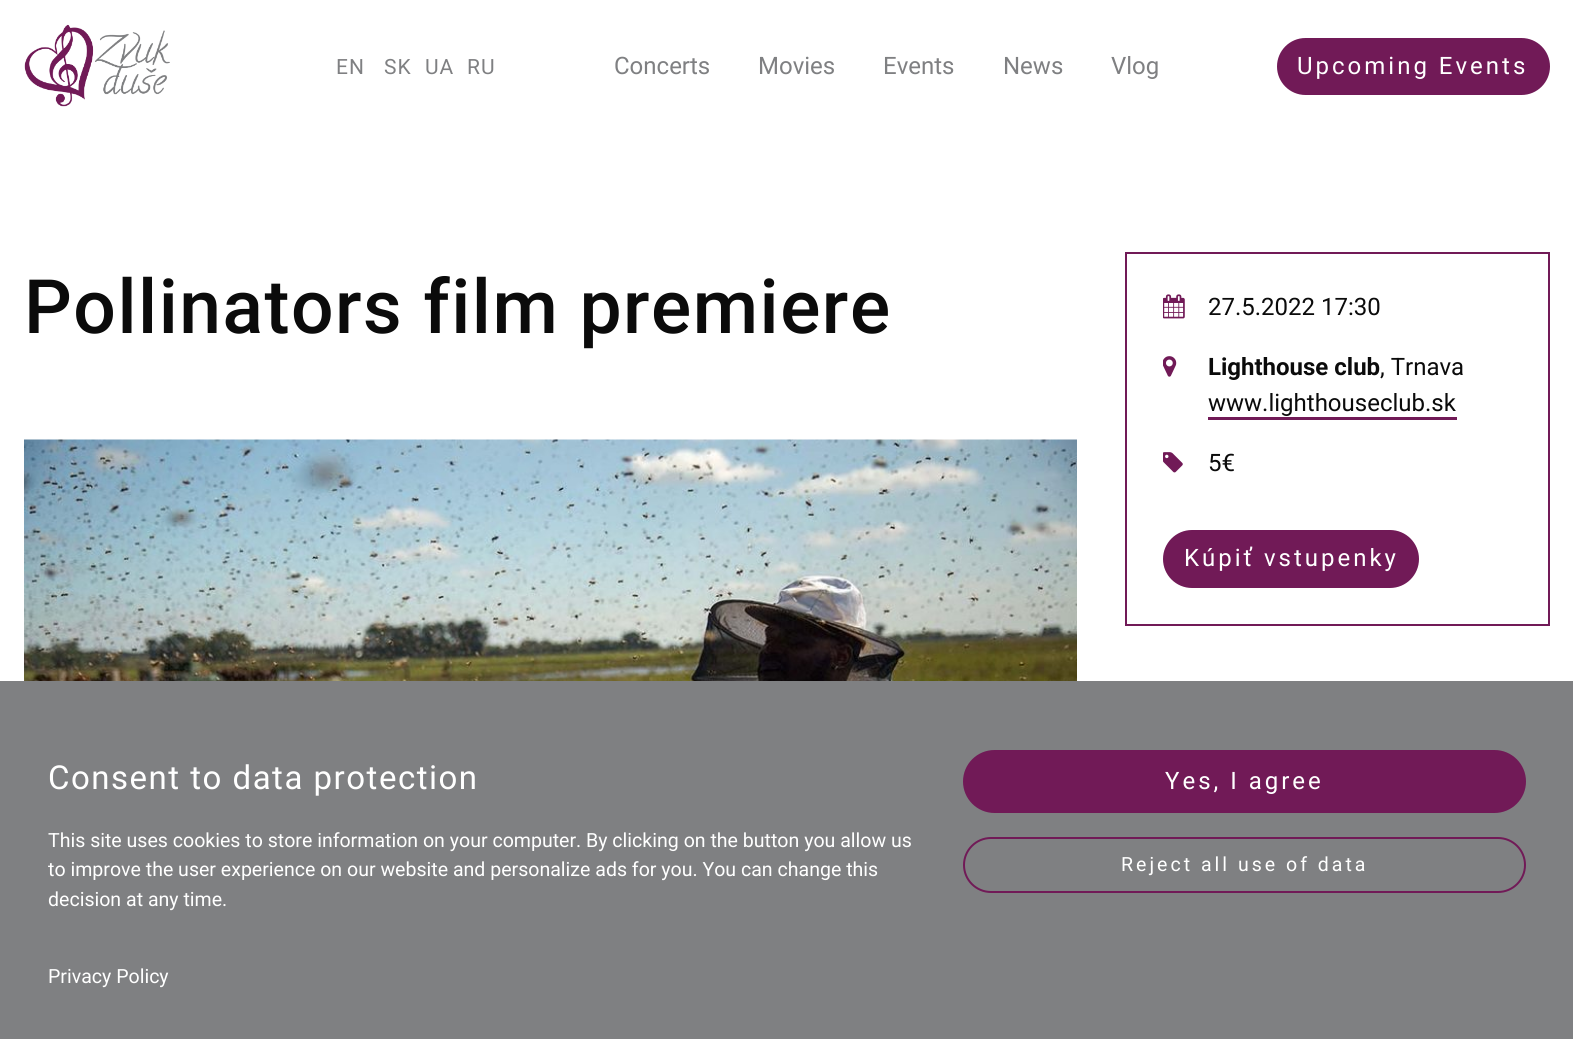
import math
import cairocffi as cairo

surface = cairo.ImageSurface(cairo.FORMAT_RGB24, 1573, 1039)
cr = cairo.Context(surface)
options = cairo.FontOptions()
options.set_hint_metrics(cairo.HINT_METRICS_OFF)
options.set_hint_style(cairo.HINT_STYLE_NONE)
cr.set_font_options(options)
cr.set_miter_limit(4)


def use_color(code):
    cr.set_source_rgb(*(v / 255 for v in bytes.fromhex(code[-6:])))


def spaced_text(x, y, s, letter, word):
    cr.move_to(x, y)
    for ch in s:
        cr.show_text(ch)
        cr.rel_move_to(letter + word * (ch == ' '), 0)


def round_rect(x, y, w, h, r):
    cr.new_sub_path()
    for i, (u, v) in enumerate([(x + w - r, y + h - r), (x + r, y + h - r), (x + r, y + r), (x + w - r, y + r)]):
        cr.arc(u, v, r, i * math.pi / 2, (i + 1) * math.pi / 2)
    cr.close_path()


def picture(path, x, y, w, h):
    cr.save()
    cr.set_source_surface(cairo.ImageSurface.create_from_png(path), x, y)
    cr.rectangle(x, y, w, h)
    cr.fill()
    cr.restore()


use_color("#ffffff")
cr.paint()
picture("img1.png", 24, 24, 146, 83)
cr.select_font_face("Roboto")
cr.set_font_size(21)
use_color("#7f8082")
spaced_text(336, 74, "EN", 1, 0)
spaced_text(384, 74, "SK", 1, 0)
spaced_text(425, 74, "UA", 1, 0)
spaced_text(467, 74, "RU", 1, 0)
cr.set_font_size(24)
cr.move_to(614, 74)
cr.show_text("Concerts")
cr.move_to(758, 74)
cr.show_text("Movies")
cr.move_to(883, 74)
cr.show_text("Events")
cr.move_to(1003, 74)
cr.show_text("News")
cr.move_to(1111, 74)
cr.show_text("Vlog")
use_color("#711a57")
round_rect(1278, 39, 271, 55, 27.5)
cr.fill_preserve()
cr.stroke()
use_color("#ffffff")
spaced_text(1297, 74, "Upcoming Events", 3, 0)
cr.select_font_face("Roboto Medium")
cr.set_font_size(75)
use_color("#0b0b0b")
spaced_text(24, 333, "Pollinators film premiere", 1.5, 0)
picture("img2.png", 24, 439, 1053, 242)
cr.rectangle(1126, 253, 423, 372)
use_color("#711a57")
cr.stroke()
picture("img3.png", 1163, 294, 22, 25)
cr.select_font_face("Roboto")
cr.set_font_size(24)
use_color("#0b0b0b")
cr.move_to(1208, 315)
cr.show_text("27.5.2022 17:30")
picture("img4.png", 1163, 356, 14, 21)
cr.select_font_face("Roboto", cairo.FONT_SLANT_NORMAL, cairo.FONT_WEIGHT_BOLD)
cr.move_to(1208, 375)
cr.show_text("Lighthouse club")
cr.select_font_face("Roboto")
cr.move_to(1380, 375)
cr.show_text(", Trnava")
cr.move_to(1208, 411)
cr.show_text("www.lighthouseclub.sk")
use_color("#711a57")
cr.rectangle(1208, 417, 249, 3)
cr.fill()
picture("img5.png", 1163, 452, 20, 21)
use_color("#0b0b0b")
cr.move_to(1208, 471)
cr.show_text("5€")
use_color("#711a57")
round_rect(1164, 531, 254, 56, 28)
cr.fill_preserve()
cr.stroke()
use_color("#ffffff")
spaced_text(1184, 566, "Kúpiť vstupenky", 3, 0)
use_color("#7f8082")
cr.rectangle(0, 681, 1573, 358)
cr.fill()
cr.set_font_size(33)
use_color("#ffffff")
spaced_text(48, 789, "Consent to data protection", 1.5, 0)
cr.set_font_size(19.55)
cr.move_to(48, 847)
cr.show_text("This site uses cookies to store information on your computer. By clicking on the button you allow us")
cr.move_to(48, 876)
cr.show_text("to improve the user experience on our website and personalize ads for you. You can change this")
cr.move_to(48, 906)
cr.show_text("decision at any time.")
use_color("#711a57")
round_rect(964, 751, 561, 61, 30.5)
cr.fill_preserve()
cr.stroke()
cr.set_font_size(24)
use_color("#ffffff")
spaced_text(1165, 789, "Yes, I agree", 3, 0)
round_rect(964, 838, 561, 54, 27)
use_color("#711a57")
cr.stroke()
cr.set_font_size(19.55)
use_color("#ffffff")
spaced_text(1121, 871, "Reject all use of data", 3, 0)
cr.move_to(48, 983)
cr.show_text("Privacy Policy")
surface.write_to_png("result.png")
